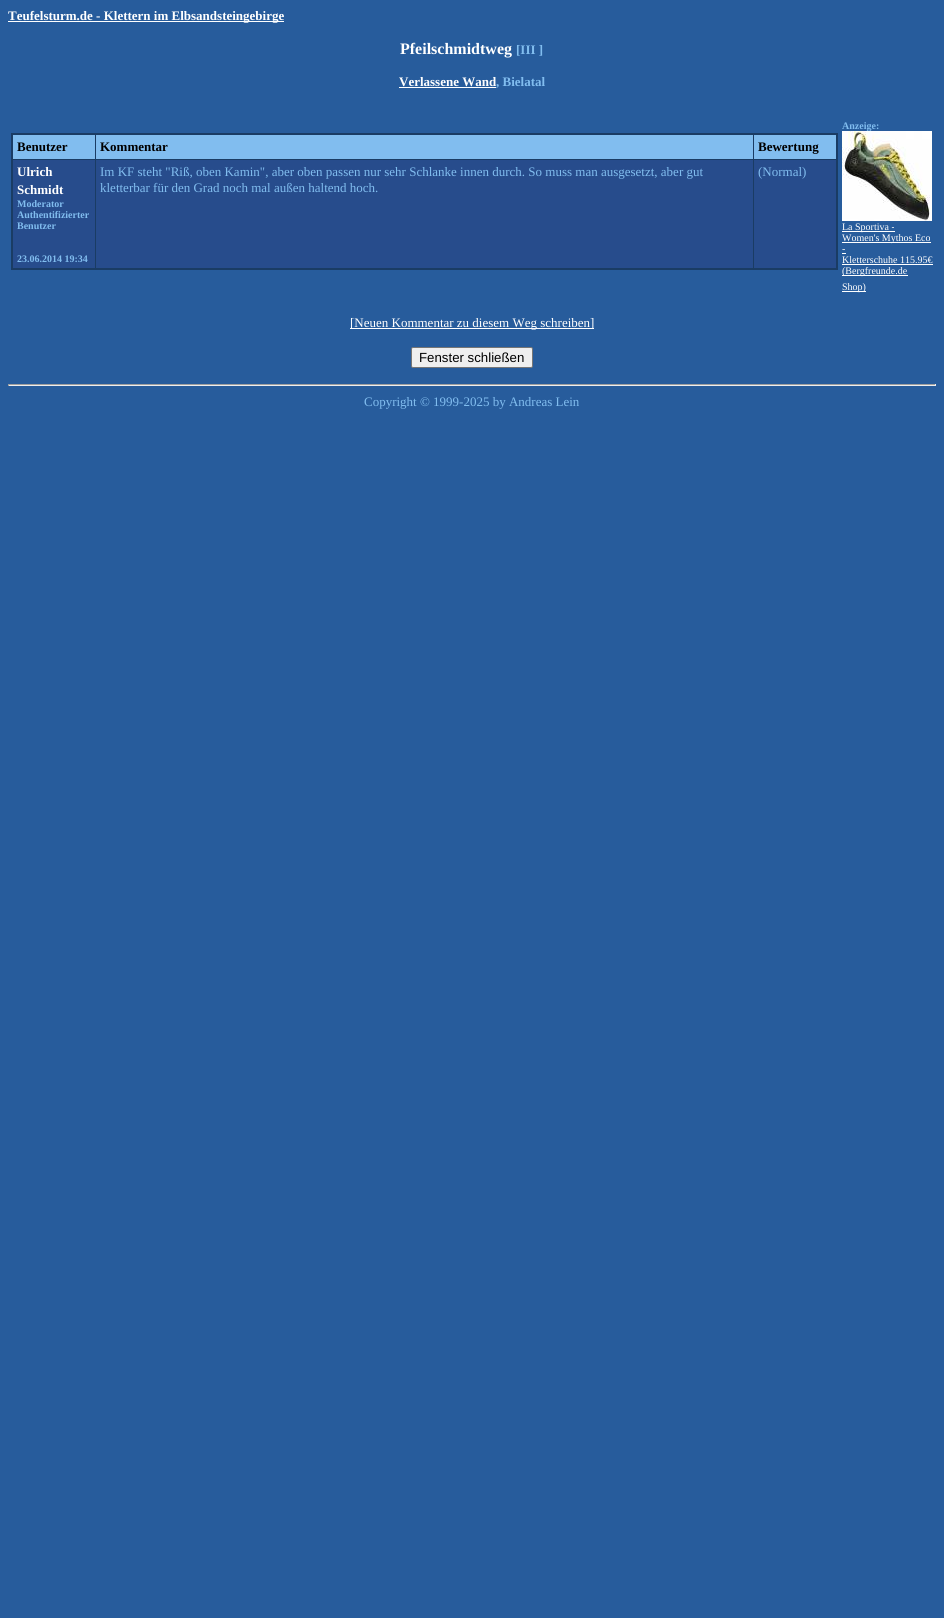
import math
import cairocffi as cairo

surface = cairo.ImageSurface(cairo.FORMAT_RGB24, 944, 1618)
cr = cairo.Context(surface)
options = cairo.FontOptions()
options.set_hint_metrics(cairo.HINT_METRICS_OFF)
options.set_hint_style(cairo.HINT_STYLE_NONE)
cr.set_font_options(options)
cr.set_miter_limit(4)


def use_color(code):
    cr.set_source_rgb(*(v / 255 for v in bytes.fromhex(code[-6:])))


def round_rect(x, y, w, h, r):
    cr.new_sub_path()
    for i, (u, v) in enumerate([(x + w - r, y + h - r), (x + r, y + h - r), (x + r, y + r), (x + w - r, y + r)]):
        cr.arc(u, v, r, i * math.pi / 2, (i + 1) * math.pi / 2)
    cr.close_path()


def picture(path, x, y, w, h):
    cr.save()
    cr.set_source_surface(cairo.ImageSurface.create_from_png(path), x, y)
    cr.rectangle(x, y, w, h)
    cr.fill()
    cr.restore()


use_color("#275c9c")
cr.paint()
use_color("#ffffff")
cr.rectangle(8, 21, 276, 1)
cr.fill()
cr.select_font_face("Liberation Serif", cairo.FONT_SLANT_NORMAL, cairo.FONT_WEIGHT_BOLD)
cr.set_font_size(13)
cr.move_to(8, 20)
cr.show_text("Teufelsturm.de - Klettern im Elbsandsteingebirge")
cr.set_font_size(16)
cr.move_to(400, 54)
cr.show_text("Pfeilschmidtweg")
cr.set_font_size(13)
use_color("#81bdef")
cr.move_to(516, 54)
cr.show_text("[III ]")
use_color("#ffffff")
cr.move_to(399, 86)
cr.show_text("Verlassene Wand")
use_color("#81bdef")
cr.move_to(496, 86)
cr.show_text(", Bielatal")
use_color("#ffffff")
cr.rectangle(399, 87, 97, 1)
cr.fill()
use_color("#1a3c64")
cr.rectangle(11, 133, 827, 137)
cr.fill()
use_color("#81bdef")
cr.rectangle(13, 135, 82, 24)
cr.fill()
use_color("#000000")
cr.move_to(17, 151)
cr.show_text("Benutzer")
use_color("#81bdef")
cr.rectangle(96, 135, 657, 24)
cr.fill()
use_color("#000000")
cr.move_to(100, 151)
cr.show_text("Kommentar")
use_color("#81bdef")
cr.rectangle(754, 135, 82, 24)
cr.fill()
use_color("#000000")
cr.move_to(758, 151)
cr.show_text("Bewertung")
use_color("#274c8c")
cr.rectangle(13, 160, 82, 108)
cr.fill()
use_color("#ffffff")
cr.move_to(17, 176)
cr.show_text("Ulrich")
cr.move_to(17, 194)
cr.show_text("Schmidt")
cr.set_font_size(10)
use_color("#81bdef")
cr.move_to(17, 207)
cr.show_text("Moderator")
cr.move_to(17, 218)
cr.show_text("Authentifizierter")
cr.move_to(17, 229)
cr.show_text("Benutzer")
cr.move_to(17, 262)
cr.show_text("23.06.2014 19:34")
use_color("#274c8c")
cr.rectangle(96, 160, 657, 108)
cr.fill()
cr.select_font_face("Liberation Serif")
cr.set_font_size(13)
use_color("#81bdef")
cr.move_to(100, 176)
cr.show_text("Im KF steht \"Riß, oben Kamin\", aber oben passen nur sehr Schlanke innen durch. So muss man ausgesetzt, aber gut")
cr.move_to(100, 192)
cr.show_text("kletterbar für den Grad noch mal außen haltend hoch.")
use_color("#274c8c")
cr.rectangle(754, 160, 82, 108)
cr.fill()
use_color("#81bdef")
cr.move_to(758, 176)
cr.show_text("(Normal)")
cr.select_font_face("Liberation Serif", cairo.FONT_SLANT_NORMAL, cairo.FONT_WEIGHT_BOLD)
cr.set_font_size(10)
cr.move_to(842, 129)
cr.show_text("Anzeige:")
picture("img1.png", 842, 131, 90, 90)
use_color("#ffffff")
cr.rectangle(842, 231, 53, 1)
cr.fill()
cr.select_font_face("Liberation Serif")
cr.move_to(842, 230)
cr.show_text("La Sportiva -")
cr.rectangle(842, 242, 89, 1)
cr.fill()
cr.move_to(842, 241)
cr.show_text("Women's Mythos Eco")
cr.move_to(842, 252)
cr.show_text("-")
cr.rectangle(842, 253, 4, 1)
cr.fill()
cr.move_to(842, 263)
cr.show_text("Kletterschuhe 115.95€")
cr.rectangle(842, 264, 91, 1)
cr.fill()
cr.rectangle(842, 275, 66, 1)
cr.fill()
cr.move_to(842, 274)
cr.show_text("(Bergfreunde.de")
cr.rectangle(842, 291, 24, 1)
cr.fill()
cr.move_to(842, 290)
cr.show_text("Shop)")
cr.rectangle(350, 328, 244, 1)
cr.fill()
cr.set_font_size(13)
cr.move_to(350, 327)
cr.show_text("[Neuen Kommentar zu diesem Weg schreiben]")
use_color("#efefef")
round_rect(411.5, 347.5, 121, 20, 1.5)
cr.fill_preserve()
use_color("#767676")
cr.set_line_width(1)
cr.stroke()
cr.select_font_face("Liberation Sans")
cr.set_font_size(13.25)
use_color("#000000")
cr.move_to(419, 362)
cr.show_text("Fenster schließen")
use_color("#9f9f9f")
cr.rectangle(8, 384, 928, 1)
cr.fill()
use_color("#eeeeee")
cr.rectangle(935, 384, 1, 2)
cr.fill()
cr.rectangle(8, 385, 928, 1)
cr.fill()
use_color("#9f9f9f")
cr.rectangle(8, 384, 1, 2)
cr.fill()
cr.select_font_face("Liberation Serif")
cr.set_font_size(13)
use_color("#81bdef")
cr.move_to(364, 406)
cr.show_text("Copyright © 1999-2025 by Andreas Lein")
surface.write_to_png("result.png")
